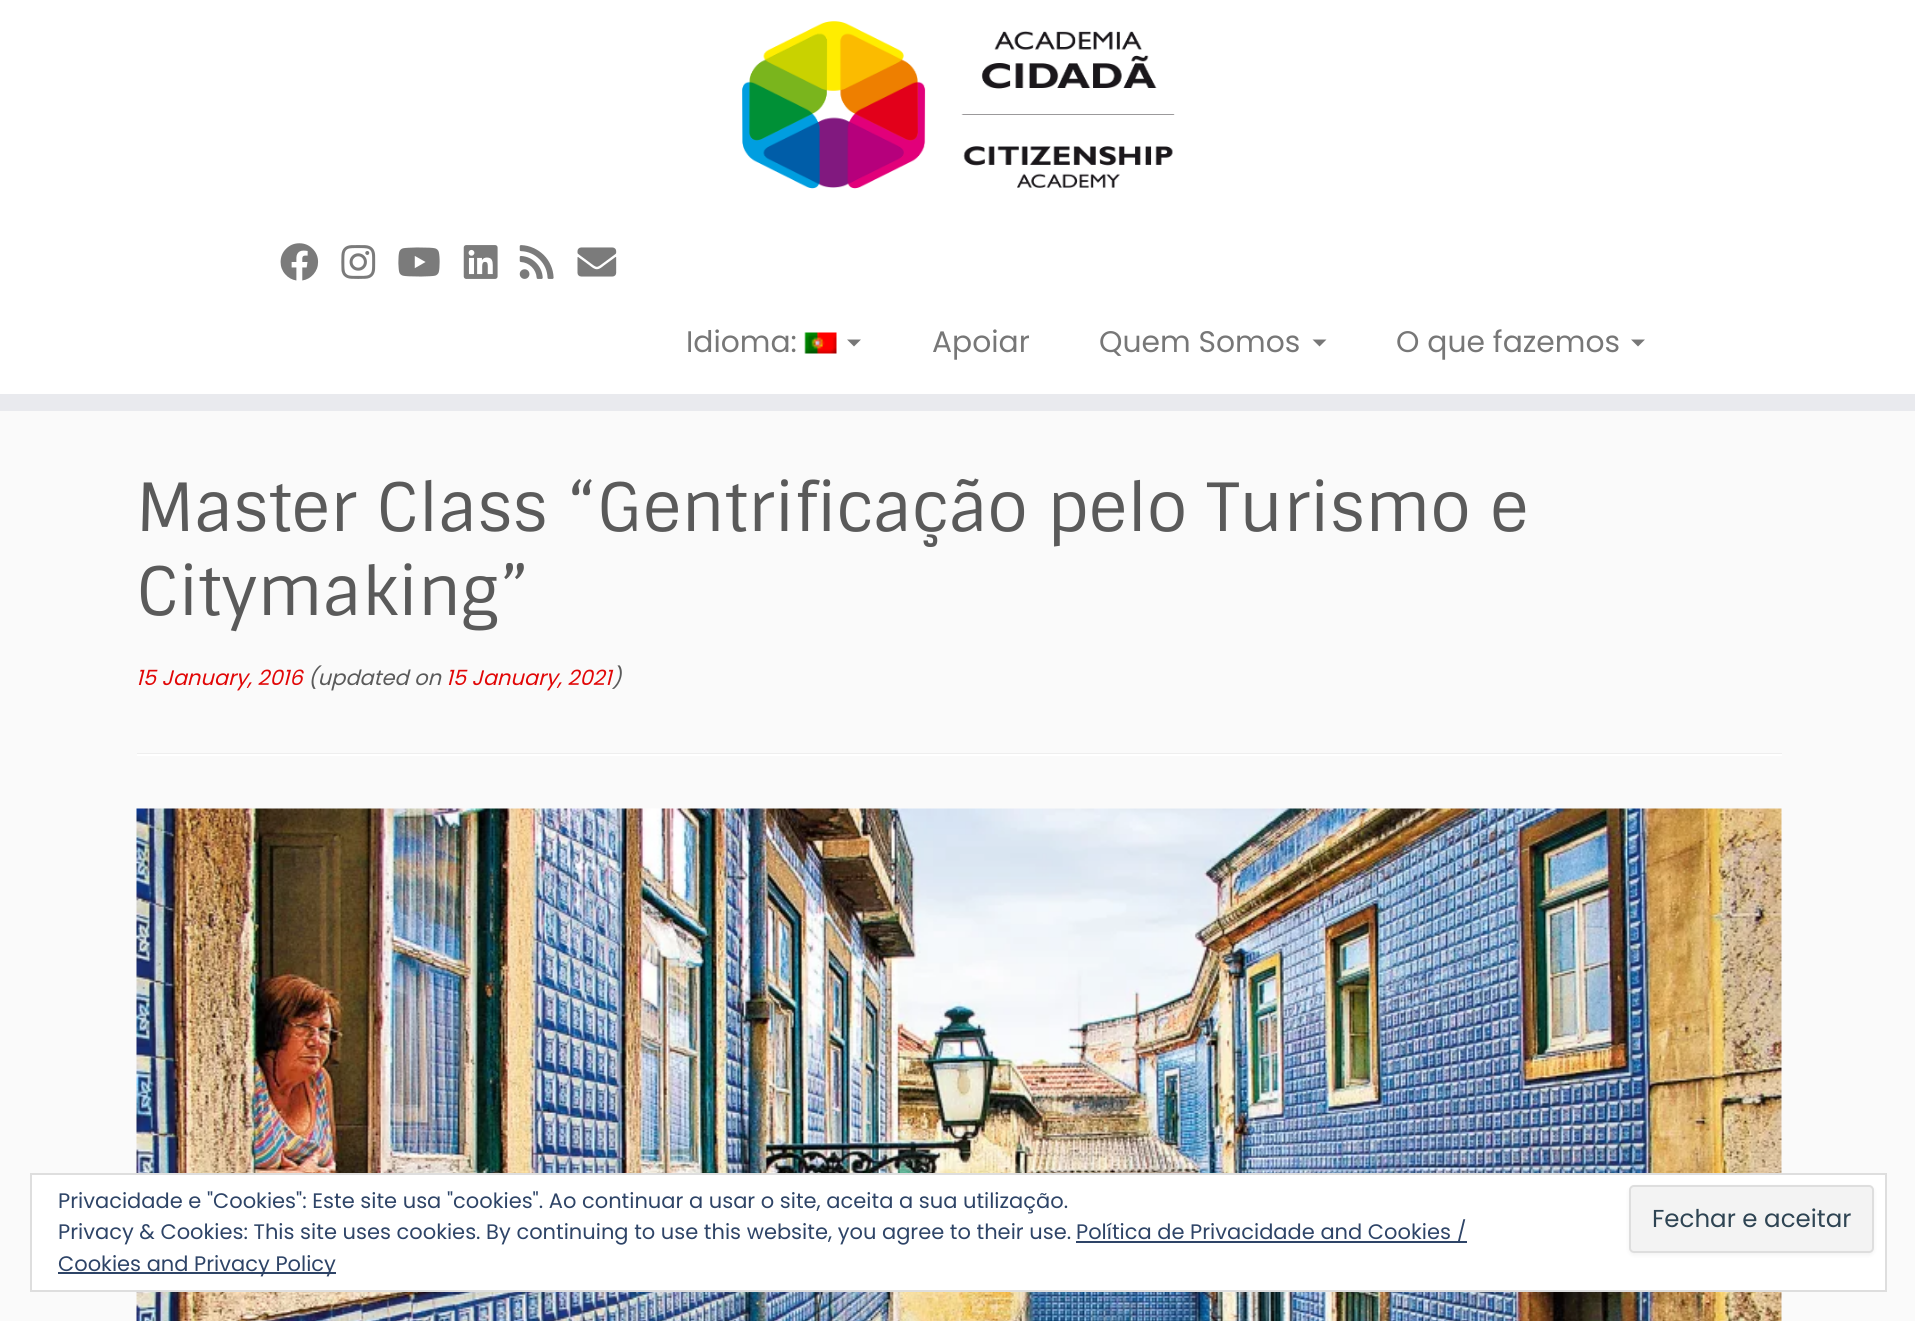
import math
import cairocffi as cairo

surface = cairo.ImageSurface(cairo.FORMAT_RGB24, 1915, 1321)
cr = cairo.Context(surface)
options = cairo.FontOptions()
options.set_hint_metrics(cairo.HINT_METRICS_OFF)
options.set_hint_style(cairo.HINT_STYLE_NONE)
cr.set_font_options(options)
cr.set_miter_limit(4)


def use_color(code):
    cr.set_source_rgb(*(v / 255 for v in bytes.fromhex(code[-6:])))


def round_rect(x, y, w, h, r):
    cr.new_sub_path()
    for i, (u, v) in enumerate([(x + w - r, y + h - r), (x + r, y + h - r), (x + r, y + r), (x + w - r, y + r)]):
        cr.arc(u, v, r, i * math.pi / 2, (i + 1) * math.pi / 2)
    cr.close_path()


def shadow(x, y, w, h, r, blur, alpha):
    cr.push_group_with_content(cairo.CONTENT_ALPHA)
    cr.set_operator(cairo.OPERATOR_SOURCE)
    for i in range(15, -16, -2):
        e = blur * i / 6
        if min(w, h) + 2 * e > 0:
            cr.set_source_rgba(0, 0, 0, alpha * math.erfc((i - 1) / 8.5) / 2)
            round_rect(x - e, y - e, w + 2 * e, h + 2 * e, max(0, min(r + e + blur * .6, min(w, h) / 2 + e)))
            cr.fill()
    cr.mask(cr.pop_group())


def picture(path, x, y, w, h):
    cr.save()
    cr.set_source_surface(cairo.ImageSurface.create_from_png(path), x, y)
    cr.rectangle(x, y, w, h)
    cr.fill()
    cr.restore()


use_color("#fafafa")
cr.paint()
use_color("#ffffff")
cr.rectangle(0, 0, 1915, 394)
cr.fill()
use_color("#e9eaee")
cr.rectangle(0, 394, 1915, 17)
cr.fill()
picture("img1.png", 742, 21, 433, 168)
picture("img2.png", 280, 243, 39, 38)
picture("img3.png", 341, 245, 35, 34)
picture("img4.png", 398, 247, 42, 30)
picture("img5.png", 463, 245, 35, 34)
picture("img6.png", 519, 245, 35, 34)
picture("img7.png", 577, 247, 40, 30)
cr.select_font_face("Poppins")
cr.set_font_size(29.75)
use_color("#777777")
cr.move_to(686, 352)
cr.show_text("Idioma:")
picture("img8.png", 804, 332, 33, 22)
cr.new_path()
cr.move_to(847, 339.5)
cr.line_to(861, 339.5)
cr.line_to(854, 346.5)
cr.close_path()
cr.fill()
cr.move_to(932, 352)
cr.show_text("Apoiar")
cr.move_to(1099, 352)
cr.show_text("Quem Somos")
cr.new_path()
cr.move_to(1312.5, 339.5)
cr.line_to(1326.5, 339.5)
cr.line_to(1319.5, 346.5)
cr.close_path()
cr.fill()
cr.move_to(1396, 352)
cr.show_text("O que fazemos")
cr.new_path()
cr.move_to(1631, 339.5)
cr.line_to(1645, 339.5)
cr.line_to(1638, 346.5)
cr.close_path()
cr.fill()
cr.select_font_face("Sintony")
cr.set_font_size(66.5)
use_color("#5a5a5a")
cr.move_to(136, 531)
cr.show_text("Master Class “Gentrificação pelo Turismo e")
cr.move_to(136, 615)
cr.show_text("Citymaking”")
cr.select_font_face("Poppins", cairo.FONT_SLANT_ITALIC)
cr.set_font_size(21)
use_color("#e10707")
cr.move_to(136, 685)
cr.show_text("15 January, 2016")
use_color("#5a5a5a")
cr.move_to(308, 685)
cr.show_text("(updated on")
use_color("#e10707")
cr.move_to(446, 685)
cr.show_text("15 January, 2021")
use_color("#5a5a5a")
cr.move_to(612, 685)
cr.show_text(")")
use_color("#eeeeee")
cr.rectangle(137, 753, 1645, 1)
cr.fill()
use_color("#ffffff")
cr.rectangle(137, 754, 1645, 2)
cr.fill()
picture("img9.png", 136, 808, 1646, 513)
cr.rectangle(31, 1174, 1855, 117)
cr.fill_preserve()
use_color("#dedede")
cr.stroke()
cr.select_font_face("Poppins")
use_color("#2e4467")
cr.move_to(58, 1208)
cr.show_text("Privacidade e \"Cookies\": Este site usa \"cookies\". Ao continuar a usar o site, aceita a sua utilização.")
cr.move_to(58, 1239)
cr.show_text("Privacy & Cookies: This site uses cookies. By continuing to use this website, you agree to their use.")
cr.rectangle(1076, 1241, 391, 2)
cr.fill()
cr.move_to(1076, 1239)
cr.show_text("Política de Privacidade and Cookies /")
use_color("#000000")
shadow(1629, 1187, 245, 68, 5, 2, 0.05)
use_color("#f3f3f3")
round_rect(1630, 1186, 243, 66, 4)
cr.fill_preserve()
use_color("#dedede")
cr.stroke()
cr.set_font_size(24.5)
use_color("#2e4453")
cr.move_to(1652, 1227)
cr.show_text("Fechar e aceitar")
use_color("#2e4467")
cr.rectangle(58, 1272, 278, 2)
cr.fill()
cr.set_font_size(21)
cr.move_to(58, 1271)
cr.show_text("Cookies and Privacy Policy")
surface.write_to_png("result.png")
